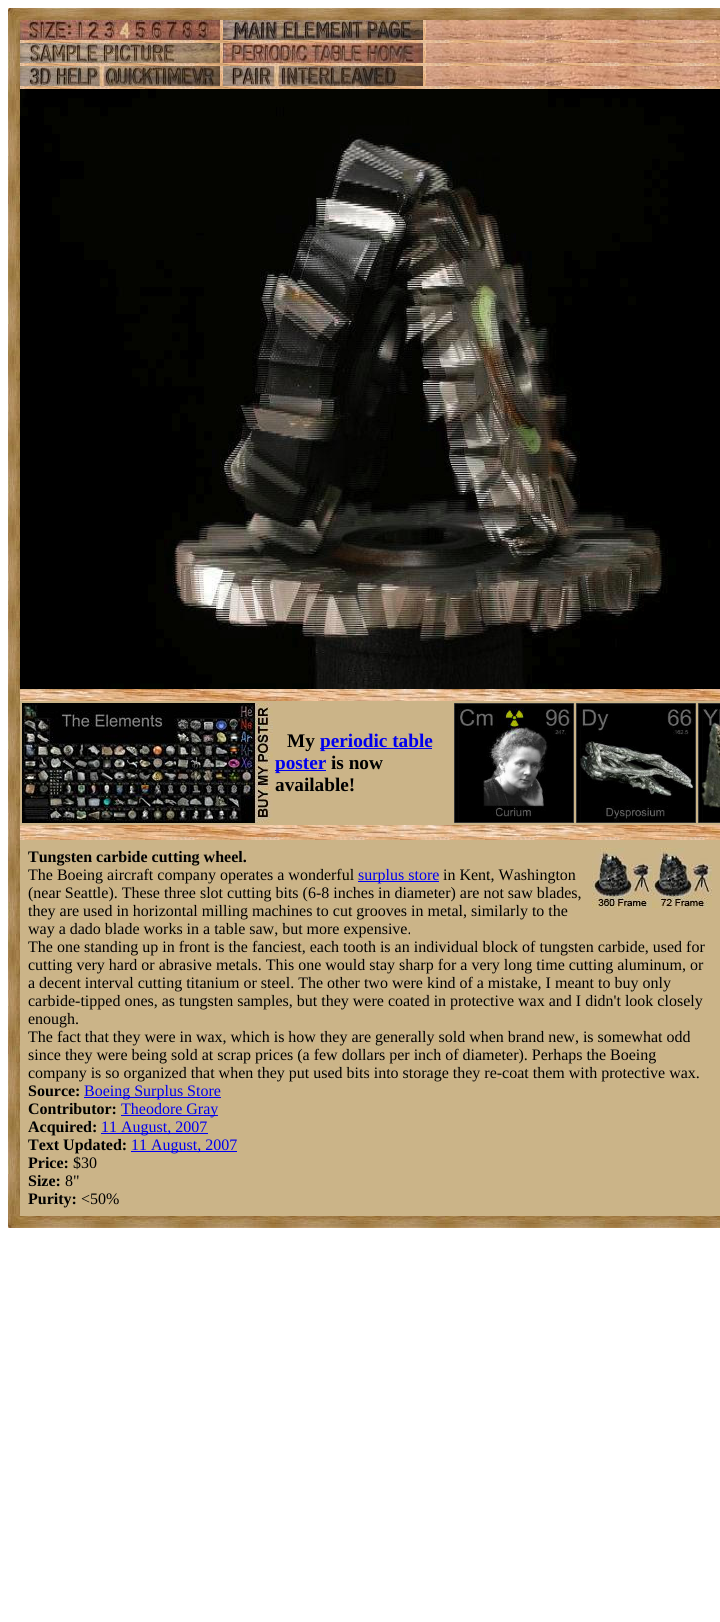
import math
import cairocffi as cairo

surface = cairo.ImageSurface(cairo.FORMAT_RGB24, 720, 1622)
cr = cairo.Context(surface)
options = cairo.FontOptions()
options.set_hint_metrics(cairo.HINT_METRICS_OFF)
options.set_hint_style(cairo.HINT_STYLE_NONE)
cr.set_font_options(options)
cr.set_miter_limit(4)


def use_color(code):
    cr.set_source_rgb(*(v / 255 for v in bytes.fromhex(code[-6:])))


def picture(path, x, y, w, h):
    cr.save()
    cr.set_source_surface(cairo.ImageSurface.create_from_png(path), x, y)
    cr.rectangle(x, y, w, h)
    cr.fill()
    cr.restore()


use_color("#ffffff")
cr.paint()
picture("img1.png", 8, 8, 12, 12)
picture("img2.png", 20, 8, 700, 12)
picture("img3.png", 8, 20, 12, 1196)
use_color("#cbb488")
cr.rectangle(20, 701, 700, 515)
cr.fill()
picture("img4.png", 20, 20, 200, 20)
picture("img5.png", 220, 20, 3, 20)
picture("img6.png", 223, 20, 200, 20)
picture("img5.png", 423, 20, 3, 20)
picture("img7.png", 426, 20, 294, 20)
picture("img8.png", 20, 40, 700, 3)
picture("img9.png", 20, 43, 200, 20)
picture("img5.png", 220, 43, 3, 20)
picture("img10.png", 223, 43, 200, 20)
picture("img5.png", 423, 43, 3, 20)
picture("img7.png", 426, 43, 294, 20)
picture("img8.png", 20, 63, 700, 3)
picture("img11.png", 20, 66, 200, 20)
picture("img5.png", 220, 66, 3, 20)
picture("img12.png", 223, 66, 200, 20)
picture("img5.png", 423, 66, 3, 20)
picture("img7.png", 426, 66, 294, 20)
picture("img8.png", 20, 86, 700, 3)
picture("img13.png", 20, 89, 700, 600)
picture("img14.png", 20, 689, 700, 12)
picture("img15.png", 22, 703, 251, 120)
cr.select_font_face("Liberation Serif", cairo.FONT_SLANT_NORMAL, cairo.FONT_WEIGHT_BOLD)
cr.set_font_size(19.25)
use_color("#000000")
cr.move_to(287, 747)
cr.show_text("My")
use_color("#0000ee")
cr.rectangle(320, 748, 112, 1)
cr.fill()
cr.move_to(320, 747)
cr.show_text("periodic table")
cr.rectangle(275, 770, 51, 1)
cr.fill()
cr.move_to(275, 769)
cr.show_text("poster")
use_color("#000000")
cr.move_to(331, 769)
cr.show_text("is now")
cr.move_to(275, 791)
cr.show_text("available!")
picture("img16.png", 454, 703, 120, 120)
picture("img17.png", 576, 703, 120, 120)
picture("img18.png", 698, 703, 22, 120)
picture("img14.png", 20, 825, 700, 12)
picture("img8.png", 20, 837, 700, 3)
cr.set_font_size(16)
cr.move_to(28, 862)
cr.show_text("Tungsten carbide cutting wheel.")
picture("img19.png", 592, 848, 60, 60)
picture("img20.png", 652, 848, 60, 60)
cr.select_font_face("Liberation Serif")
cr.move_to(28, 880)
cr.show_text("The Boeing aircraft company operates a wonderful")
use_color("#0000ee")
cr.rectangle(358, 881, 81, 1)
cr.fill()
cr.move_to(358, 880)
cr.show_text("surplus store")
use_color("#000000")
cr.move_to(443, 880)
cr.show_text("in Kent, Washington")
cr.move_to(28, 898)
cr.show_text("(near Seattle). These three slot cutting bits (6-8 inches in diameter) are not saw blades,")
cr.move_to(28, 916)
cr.show_text("they are used in horizontal milling machines to cut grooves in metal, similarly to the")
cr.move_to(28, 934)
cr.show_text("way a dado blade works in a table saw, but more expensive.")
cr.move_to(28, 952)
cr.show_text("The one standing up in front is the fanciest, each tooth is an individual block of tungsten carbide, used for")
cr.move_to(28, 970)
cr.show_text("cutting very hard or abrasive metals. This one would stay sharp for a very long time cutting aluminum, or")
cr.move_to(28, 988)
cr.show_text("a decent interval cutting titanium or steel. The other two were kind of a mistake, I meant to buy only")
cr.move_to(28, 1006)
cr.show_text("carbide-tipped ones, as tungsten samples, but they were coated in protective wax and I didn't look closely")
cr.move_to(28, 1024)
cr.show_text("enough.")
cr.move_to(28, 1042)
cr.show_text("The fact that they were in wax, which is how they are generally sold when brand new, is somewhat odd")
cr.move_to(28, 1060)
cr.show_text("since they were being sold at scrap prices (a few dollars per inch of diameter). Perhaps the Boeing")
cr.move_to(28, 1078)
cr.show_text("company is so organized that when they put used bits into storage they re-coat them with protective wax.")
cr.select_font_face("Liberation Serif", cairo.FONT_SLANT_NORMAL, cairo.FONT_WEIGHT_BOLD)
cr.move_to(28, 1096)
cr.show_text("Source:")
use_color("#0000ee")
cr.rectangle(84, 1097, 137, 1)
cr.fill()
cr.select_font_face("Liberation Serif")
cr.move_to(84, 1096)
cr.show_text("Boeing Surplus Store")
cr.select_font_face("Liberation Serif", cairo.FONT_SLANT_NORMAL, cairo.FONT_WEIGHT_BOLD)
use_color("#000000")
cr.move_to(28, 1114)
cr.show_text("Contributor:")
use_color("#0000ee")
cr.rectangle(121, 1115, 97, 1)
cr.fill()
cr.select_font_face("Liberation Serif")
cr.move_to(121, 1114)
cr.show_text("Theodore Gray")
cr.select_font_face("Liberation Serif", cairo.FONT_SLANT_NORMAL, cairo.FONT_WEIGHT_BOLD)
use_color("#000000")
cr.move_to(28, 1132)
cr.show_text("Acquired:")
use_color("#0000ee")
cr.rectangle(101, 1133, 107, 1)
cr.fill()
cr.select_font_face("Liberation Serif")
cr.move_to(101, 1132)
cr.show_text("11 August, 2007")
cr.select_font_face("Liberation Serif", cairo.FONT_SLANT_NORMAL, cairo.FONT_WEIGHT_BOLD)
use_color("#000000")
cr.move_to(28, 1150)
cr.show_text("Text Updated:")
use_color("#0000ee")
cr.rectangle(131, 1151, 106, 1)
cr.fill()
cr.select_font_face("Liberation Serif")
cr.move_to(131, 1150)
cr.show_text("11 August, 2007")
cr.select_font_face("Liberation Serif", cairo.FONT_SLANT_NORMAL, cairo.FONT_WEIGHT_BOLD)
use_color("#000000")
cr.move_to(28, 1168)
cr.show_text("Price:")
cr.select_font_face("Liberation Serif")
cr.move_to(73, 1168)
cr.show_text("$30")
cr.select_font_face("Liberation Serif", cairo.FONT_SLANT_NORMAL, cairo.FONT_WEIGHT_BOLD)
cr.move_to(28, 1186)
cr.show_text("Size:")
cr.select_font_face("Liberation Serif")
cr.move_to(65, 1186)
cr.show_text("8\"")
cr.select_font_face("Liberation Serif", cairo.FONT_SLANT_NORMAL, cairo.FONT_WEIGHT_BOLD)
cr.move_to(28, 1204)
cr.show_text("Purity:")
cr.select_font_face("Liberation Serif")
cr.move_to(81, 1204)
cr.show_text("<50%")
picture("img21.png", 8, 1216, 12, 12)
picture("img22.png", 20, 1216, 700, 12)
surface.write_to_png("result.png")
